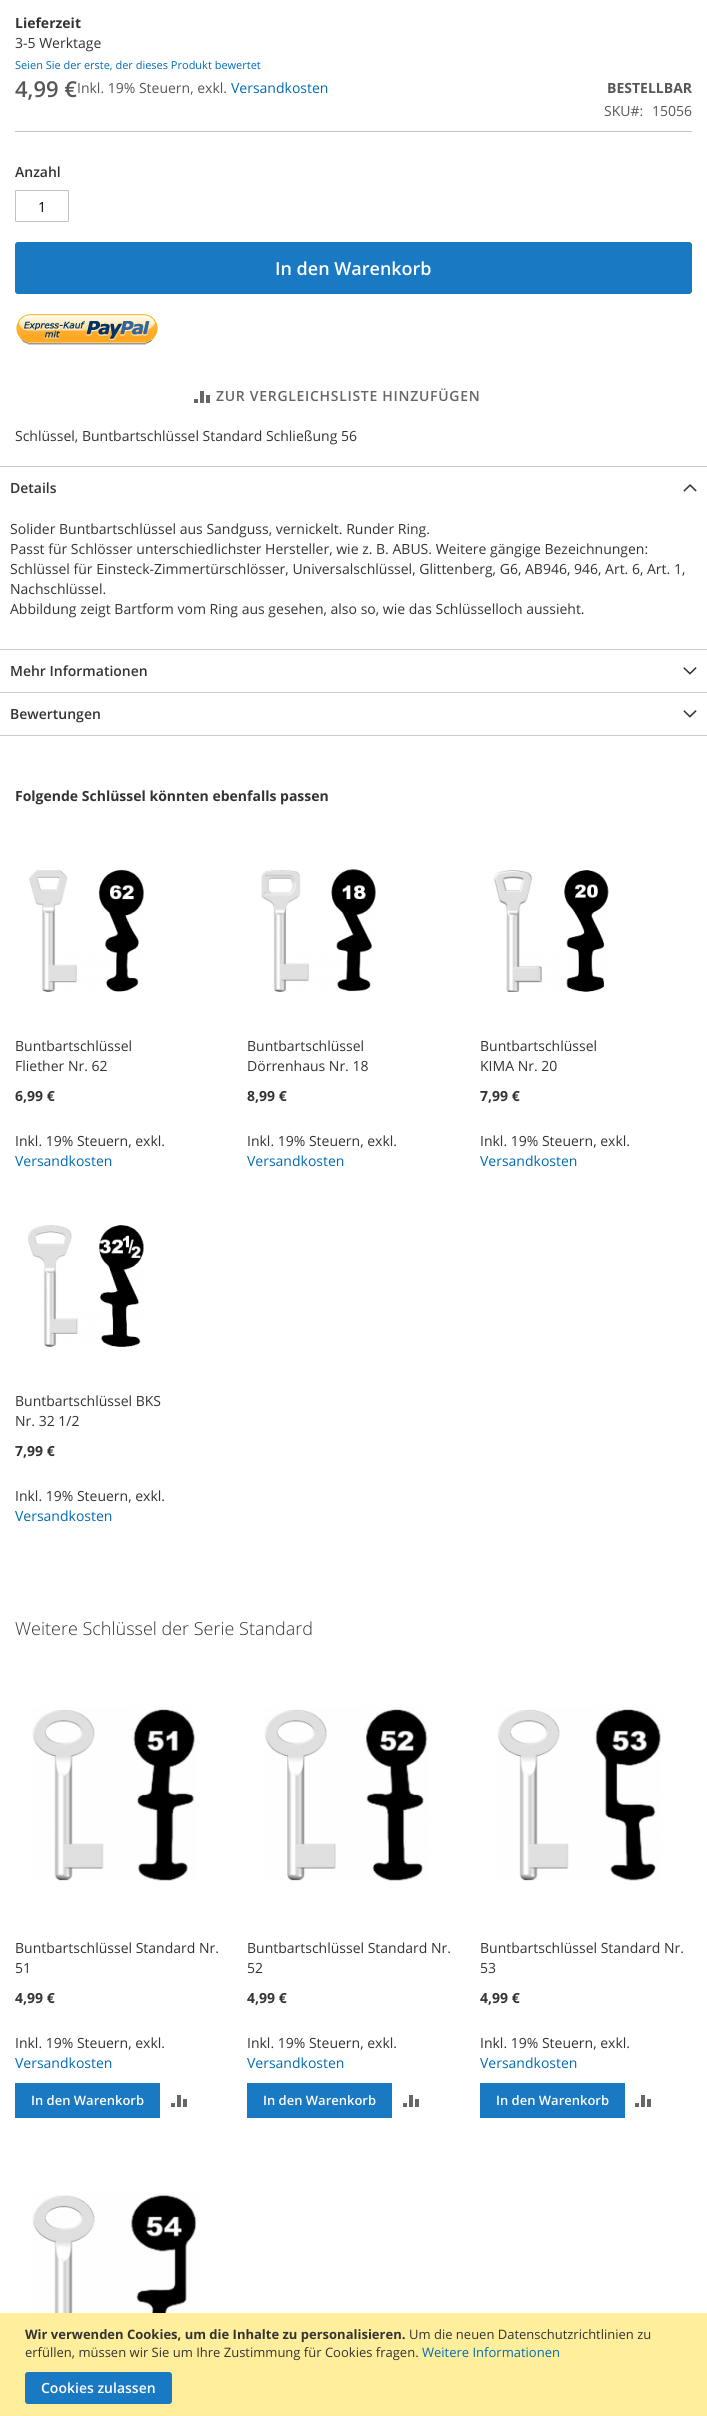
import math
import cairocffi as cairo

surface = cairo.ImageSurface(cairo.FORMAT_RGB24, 707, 2416)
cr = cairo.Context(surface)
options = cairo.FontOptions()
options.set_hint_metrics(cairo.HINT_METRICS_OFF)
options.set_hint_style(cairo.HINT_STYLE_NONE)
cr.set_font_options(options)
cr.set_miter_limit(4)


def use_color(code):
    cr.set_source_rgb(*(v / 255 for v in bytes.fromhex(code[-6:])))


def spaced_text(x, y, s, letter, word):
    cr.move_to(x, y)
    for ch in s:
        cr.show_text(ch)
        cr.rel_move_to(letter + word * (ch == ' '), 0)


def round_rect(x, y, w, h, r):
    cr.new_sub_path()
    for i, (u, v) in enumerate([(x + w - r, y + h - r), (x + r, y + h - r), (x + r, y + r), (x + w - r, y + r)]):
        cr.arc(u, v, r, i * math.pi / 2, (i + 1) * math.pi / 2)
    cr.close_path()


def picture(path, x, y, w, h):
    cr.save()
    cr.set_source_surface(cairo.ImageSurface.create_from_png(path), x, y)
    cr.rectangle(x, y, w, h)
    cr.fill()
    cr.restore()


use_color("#ffffff")
cr.paint()
cr.select_font_face("Open Sans", cairo.FONT_SLANT_NORMAL, cairo.FONT_WEIGHT_BOLD)
cr.set_font_size(14)
use_color("#333333")
cr.move_to(15, 28)
cr.show_text("Lieferzeit")
cr.select_font_face("Open Sans")
cr.move_to(15, 48)
cr.show_text("3-5 Werktage")
cr.set_font_size(11)
use_color("#006bb4")
cr.move_to(15, 69)
cr.show_text("Seien Sie der erste, der dieses Produkt bewertet")
use_color("#c1c1c1")
cr.rectangle(15, 131, 677, 1)
cr.fill()
cr.select_font_face("Open Sans SemiBold")
cr.set_font_size(22)
use_color("#575757")
cr.move_to(15, 97)
cr.show_text("4,99 €")
cr.select_font_face("Open Sans")
cr.set_font_size(14)
cr.move_to(77, 93)
cr.show_text("Inkl. 19% Steuern, exkl.")
use_color("#006bb4")
cr.move_to(231, 93)
cr.show_text("Versandkosten")
cr.select_font_face("Open Sans", cairo.FONT_SLANT_NORMAL, cairo.FONT_WEIGHT_BOLD)
use_color("#575757")
cr.move_to(607, 93)
cr.show_text("BESTELLBAR")
cr.select_font_face("Open Sans")
cr.move_to(604, 116)
cr.show_text("SKU#:")
cr.move_to(652, 116)
cr.show_text("15056")
cr.select_font_face("Open Sans SemiBold")
use_color("#333333")
cr.move_to(15, 177)
cr.show_text("Anzahl")
round_rect(15.5, 190.5, 53, 31, 0.5)
use_color("#c2c2c2")
cr.set_line_width(1)
cr.stroke()
cr.select_font_face("Open Sans")
use_color("#000000")
cr.move_to(38, 212)
cr.show_text("1")
use_color("#1979c3")
round_rect(15.5, 242.5, 676, 51, 2.5)
cr.fill_preserve()
cr.stroke()
cr.select_font_face("Open Sans SemiBold")
cr.set_font_size(18)
use_color("#ffffff")
cr.move_to(275, 275)
cr.show_text("In den Warenkorb")
picture("img1.png", 16, 314, 142, 31)
picture("img2.png", 194, 391, 16, 12)
cr.set_font_size(14)
use_color("#666666")
spaced_text(216, 401, "ZUR VERGLEICHSLISTE HINZUFÜGEN", 0.7, 0)
cr.select_font_face("Open Sans")
use_color("#333333")
cr.move_to(15, 441)
cr.show_text("Schlüssel, Buntbartschlüssel Standard Schließung 56")
use_color("#cccccc")
cr.rectangle(0, 735, 707, 1)
cr.fill()
cr.rectangle(0, 466, 707, 1)
cr.fill()
cr.select_font_face("Open Sans SemiBold")
use_color("#333333")
cr.move_to(10, 493)
cr.show_text("Details")
picture("img3.png", 683, 484, 14, 8)
cr.select_font_face("Open Sans")
cr.move_to(10, 534)
cr.show_text("Solider Buntbartschlüssel aus Sandguss, vernickelt. Runder Ring.")
cr.move_to(10, 554)
cr.show_text("Passt für Schlösser unterschiedlichster Hersteller, wie z. B. ABUS. Weitere gängige Bezeichnungen:")
cr.move_to(10, 574)
cr.show_text("Schlüssel für Einsteck-Zimmertürschlösser, Universalschlüssel, Glittenberg, G6, AB946, 946, Art. 6, Art. 1,")
cr.move_to(10, 594)
cr.show_text("Nachschlüssel.")
cr.move_to(10, 614)
cr.show_text("Abbildung zeigt Bartform vom Ring aus gesehen, also so, wie das Schlüsselloch aussieht.")
use_color("#cccccc")
cr.rectangle(0, 649, 707, 1)
cr.fill()
cr.select_font_face("Open Sans SemiBold")
use_color("#333333")
cr.move_to(10, 676)
cr.show_text("Mehr Informationen")
picture("img4.png", 683, 667, 14, 8)
use_color("#cccccc")
cr.rectangle(0, 692, 707, 1)
cr.fill()
use_color("#333333")
cr.move_to(10, 719)
cr.show_text("Bewertungen")
picture("img4.png", 683, 710, 14, 8)
cr.select_font_face("Open Sans", cairo.FONT_SLANT_NORMAL, cairo.FONT_WEIGHT_BOLD)
cr.move_to(15, 801)
cr.show_text("Folgende Schlüssel könnten ebenfalls passen")
picture("img5.png", 29, 869, 116, 123)
cr.select_font_face("Open Sans")
cr.move_to(15, 1051)
cr.show_text("Buntbartschlüssel")
cr.move_to(15, 1071)
cr.show_text("Fliether Nr. 62")
cr.select_font_face("Open Sans", cairo.FONT_SLANT_NORMAL, cairo.FONT_WEIGHT_BOLD)
cr.move_to(15, 1101)
cr.show_text("6,99 €")
cr.select_font_face("Open Sans")
cr.move_to(15, 1146)
cr.show_text("Inkl. 19% Steuern, exkl.")
use_color("#006bb4")
cr.move_to(15, 1166)
cr.show_text("Versandkosten")
picture("img6.png", 261, 869, 115, 123)
use_color("#333333")
cr.move_to(247, 1051)
cr.show_text("Buntbartschlüssel")
cr.move_to(247, 1071)
cr.show_text("Dörrenhaus Nr. 18")
cr.select_font_face("Open Sans", cairo.FONT_SLANT_NORMAL, cairo.FONT_WEIGHT_BOLD)
cr.move_to(247, 1101)
cr.show_text("8,99 €")
cr.select_font_face("Open Sans")
cr.move_to(247, 1146)
cr.show_text("Inkl. 19% Steuern, exkl.")
use_color("#006bb4")
cr.move_to(247, 1166)
cr.show_text("Versandkosten")
picture("img7.png", 494, 870, 115, 122)
use_color("#333333")
cr.move_to(480, 1051)
cr.show_text("Buntbartschlüssel")
cr.move_to(480, 1071)
cr.show_text("KIMA Nr. 20")
cr.select_font_face("Open Sans", cairo.FONT_SLANT_NORMAL, cairo.FONT_WEIGHT_BOLD)
cr.move_to(480, 1101)
cr.show_text("7,99 €")
cr.select_font_face("Open Sans")
cr.move_to(480, 1146)
cr.show_text("Inkl. 19% Steuern, exkl.")
use_color("#006bb4")
cr.move_to(480, 1166)
cr.show_text("Versandkosten")
picture("img8.png", 28, 1225, 116, 122)
use_color("#333333")
cr.move_to(15, 1406)
cr.show_text("Buntbartschlüssel BKS")
cr.move_to(15, 1426)
cr.show_text("Nr. 32 1/2")
cr.select_font_face("Open Sans", cairo.FONT_SLANT_NORMAL, cairo.FONT_WEIGHT_BOLD)
cr.move_to(15, 1456)
cr.show_text("7,99 €")
cr.select_font_face("Open Sans")
cr.move_to(15, 1501)
cr.show_text("Inkl. 19% Steuern, exkl.")
use_color("#006bb4")
cr.move_to(15, 1521)
cr.show_text("Versandkosten")
cr.select_font_face("Open Sans Light")
cr.set_font_size(18)
use_color("#333333")
cr.move_to(15, 1635)
cr.show_text("Weitere Schlüssel der Serie Standard")
picture("img9.png", 32, 1707, 164, 174)
cr.select_font_face("Open Sans")
cr.set_font_size(14)
cr.move_to(15, 1953)
cr.show_text("Buntbartschlüssel Standard Nr.")
cr.move_to(15, 1973)
cr.show_text("51")
cr.select_font_face("Open Sans", cairo.FONT_SLANT_NORMAL, cairo.FONT_WEIGHT_BOLD)
cr.move_to(15, 2003)
cr.show_text("4,99 €")
cr.select_font_face("Open Sans")
cr.move_to(15, 2048)
cr.show_text("Inkl. 19% Steuern, exkl.")
use_color("#006bb4")
cr.move_to(15, 2068)
cr.show_text("Versandkosten")
use_color("#1979c3")
cr.rectangle(15, 2083, 145, 35)
cr.fill()
cr.select_font_face("Open Sans SemiBold")
cr.set_font_size(13)
use_color("#ffffff")
cr.move_to(31, 2105)
cr.show_text("In den Warenkorb")
picture("img2.png", 171, 2095, 16, 12)
picture("img10.png", 264, 1707, 164, 174)
cr.select_font_face("Open Sans")
cr.set_font_size(14)
use_color("#333333")
cr.move_to(247, 1953)
cr.show_text("Buntbartschlüssel Standard Nr.")
cr.move_to(247, 1973)
cr.show_text("52")
cr.select_font_face("Open Sans", cairo.FONT_SLANT_NORMAL, cairo.FONT_WEIGHT_BOLD)
cr.move_to(247, 2003)
cr.show_text("4,99 €")
cr.select_font_face("Open Sans")
cr.move_to(247, 2048)
cr.show_text("Inkl. 19% Steuern, exkl.")
use_color("#006bb4")
cr.move_to(247, 2068)
cr.show_text("Versandkosten")
use_color("#1979c3")
cr.rectangle(247, 2083, 145, 35)
cr.fill()
cr.select_font_face("Open Sans SemiBold")
cr.set_font_size(13)
use_color("#ffffff")
cr.move_to(263, 2105)
cr.show_text("In den Warenkorb")
picture("img2.png", 403, 2095, 16, 12)
picture("img11.png", 497, 1707, 164, 174)
cr.select_font_face("Open Sans")
cr.set_font_size(14)
use_color("#333333")
cr.move_to(480, 1953)
cr.show_text("Buntbartschlüssel Standard Nr.")
cr.move_to(480, 1973)
cr.show_text("53")
cr.select_font_face("Open Sans", cairo.FONT_SLANT_NORMAL, cairo.FONT_WEIGHT_BOLD)
cr.move_to(480, 2003)
cr.show_text("4,99 €")
cr.select_font_face("Open Sans")
cr.move_to(480, 2048)
cr.show_text("Inkl. 19% Steuern, exkl.")
use_color("#006bb4")
cr.move_to(480, 2068)
cr.show_text("Versandkosten")
use_color("#1979c3")
cr.rectangle(480, 2083, 145, 35)
cr.fill()
cr.select_font_face("Open Sans SemiBold")
cr.set_font_size(13)
use_color("#ffffff")
cr.move_to(496, 2105)
cr.show_text("In den Warenkorb")
picture("img2.png", 635, 2095, 16, 12)
picture("img12.png", 32, 2193, 166, 120)
use_color("#ffee9c")
cr.rectangle(0, 2313, 707, 103)
cr.fill()
cr.select_font_face("Open Sans", cairo.FONT_SLANT_NORMAL, cairo.FONT_WEIGHT_BOLD)
use_color("#333333")
cr.move_to(25, 2339)
cr.show_text("Wir verwenden Cookies, um die Inhalte zu personalisieren.")
cr.select_font_face("Open Sans")
cr.move_to(409, 2339)
cr.show_text("Um die neuen Datenschutzrichtlinien zu")
cr.move_to(25, 2357)
cr.show_text("erfüllen, müssen wir Sie um Ihre Zustimmung für Cookies fragen.")
use_color("#006bb4")
cr.move_to(422, 2357)
cr.show_text("Weitere Informationen")
use_color("#1979c3")
round_rect(25.5, 2372.5, 146, 31, 2.5)
cr.fill_preserve()
cr.stroke()
cr.select_font_face("Open Sans SemiBold")
cr.set_font_size(14)
use_color("#ffffff")
cr.move_to(41, 2393)
cr.show_text("Cookies zulassen")
surface.write_to_png("result.png")
